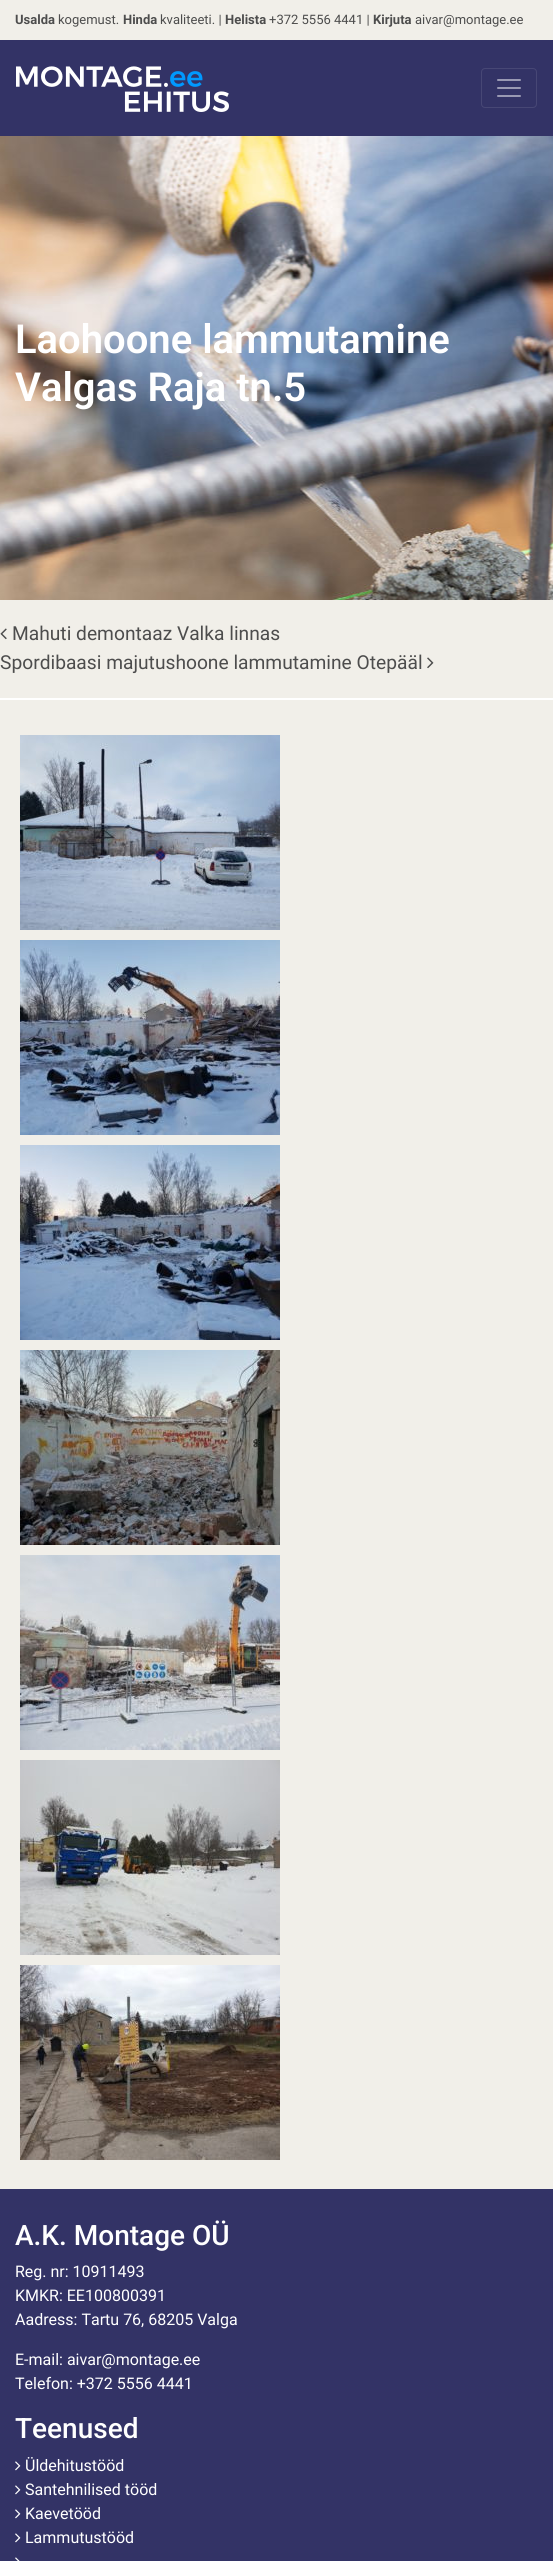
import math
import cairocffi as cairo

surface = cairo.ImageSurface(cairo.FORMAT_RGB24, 553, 2561)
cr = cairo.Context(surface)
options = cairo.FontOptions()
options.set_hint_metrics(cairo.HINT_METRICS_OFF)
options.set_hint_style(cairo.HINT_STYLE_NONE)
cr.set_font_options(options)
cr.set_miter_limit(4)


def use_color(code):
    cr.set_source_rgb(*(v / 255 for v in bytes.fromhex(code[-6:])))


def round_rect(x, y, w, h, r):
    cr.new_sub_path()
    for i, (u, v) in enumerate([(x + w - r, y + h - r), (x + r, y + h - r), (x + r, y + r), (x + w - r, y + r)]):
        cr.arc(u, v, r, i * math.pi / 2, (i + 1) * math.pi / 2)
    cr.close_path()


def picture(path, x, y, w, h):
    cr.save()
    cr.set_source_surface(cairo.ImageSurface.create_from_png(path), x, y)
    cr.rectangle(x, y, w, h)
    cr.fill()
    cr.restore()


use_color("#f1efe9")
cr.paint()
cr.select_font_face("Roboto", cairo.FONT_SLANT_NORMAL, cairo.FONT_WEIGHT_BOLD)
cr.set_font_size(13)
use_color("#4d4d4d")
cr.move_to(15, 24)
cr.show_text("Usalda")
cr.select_font_face("Roboto")
cr.move_to(58, 24)
cr.show_text("kogemust.")
cr.select_font_face("Roboto", cairo.FONT_SLANT_NORMAL, cairo.FONT_WEIGHT_BOLD)
cr.move_to(123, 24)
cr.show_text("Hinda")
cr.select_font_face("Roboto")
cr.move_to(160, 24)
cr.show_text("kvaliteeti. |")
cr.select_font_face("Roboto", cairo.FONT_SLANT_NORMAL, cairo.FONT_WEIGHT_BOLD)
cr.move_to(225, 24)
cr.show_text("Helista")
cr.select_font_face("Roboto")
cr.move_to(269, 24)
cr.show_text("+372 5556 4441 |")
cr.select_font_face("Roboto", cairo.FONT_SLANT_NORMAL, cairo.FONT_WEIGHT_BOLD)
cr.move_to(373, 24)
cr.show_text("Kirjuta")
cr.select_font_face("Roboto")
cr.move_to(415, 24)
cr.show_text("aivar@montage.ee")
use_color("#333366")
cr.rectangle(0, 40, 553, 96)
cr.fill()
picture("img1.png", 16, 66, 213, 46)
round_rect(481.5, 68.5, 55, 39, 3.5)
use_color("#474775")
cr.set_line_width(1)
cr.stroke()
picture("img2.png", 497, 79, 24, 18)
picture("img3.png", 0, 136, 553, 464)
cr.select_font_face("Roboto SemiBold")
cr.set_font_size(40)
use_color("#ffffff")
cr.move_to(15, 353)
cr.show_text("Laohoone lammutamine")
cr.move_to(15, 401)
cr.show_text("Valgas Raja tn.5")
cr.rectangle(0, 698, 553, 2)
cr.fill()
picture("img4.png", 0, 628, 7, 12)
cr.select_font_face("Roboto")
cr.set_font_size(19.2)
use_color("#4d4d4d")
cr.move_to(12, 640)
cr.show_text("Mahuti demontaaz Valka linnas")
cr.move_to(0, 669)
cr.show_text("Spordibaasi majutushoone lammutamine Otepääl")
picture("img5.png", 427, 657, 7, 12)
picture("img6.png", 20, 735, 260, 195)
picture("img7.png", 20, 940, 260, 195)
picture("img8.png", 20, 1145, 260, 195)
picture("img9.png", 20, 1350, 260, 195)
picture("img10.png", 20, 1555, 260, 195)
picture("img11.png", 20, 1760, 260, 195)
picture("img12.png", 20, 1965, 260, 195)
use_color("#333366")
cr.rectangle(0, 2189, 553, 372)
cr.fill()
cr.select_font_face("Roboto Medium")
cr.set_font_size(28)
use_color("#ffffff")
cr.move_to(15, 2245)
cr.show_text("A.K. Montage OÜ")
cr.select_font_face("Roboto")
cr.set_font_size(16)
cr.move_to(15, 2277)
cr.show_text("Reg. nr: 10911493")
cr.move_to(15, 2301)
cr.show_text("KMKR: EE100800391")
cr.move_to(15, 2325)
cr.show_text("Aadress: Tartu 76, 68205 Valga")
cr.move_to(15, 2365)
cr.show_text("E-mail: aivar@montage.ee")
cr.move_to(15, 2389)
cr.show_text("Telefon: +372 5556 4441")
cr.select_font_face("Roboto Medium")
cr.set_font_size(28)
cr.move_to(15, 2438)
cr.show_text("Teenused")
picture("img13.png", 15, 2461, 6, 10)
cr.select_font_face("Roboto")
cr.set_font_size(16)
cr.move_to(25, 2471)
cr.show_text("Üldehitustööd")
picture("img13.png", 15, 2485, 6, 10)
cr.move_to(25, 2495)
cr.show_text("Santehnilised tööd")
picture("img13.png", 15, 2509, 6, 10)
cr.move_to(25, 2519)
cr.show_text("Kaevetööd")
picture("img13.png", 15, 2533, 6, 10)
cr.move_to(25, 2543)
cr.show_text("Lammutustööd")
picture("img14.png", 15, 2557, 5, 4)
surface.write_to_png("result.png")
